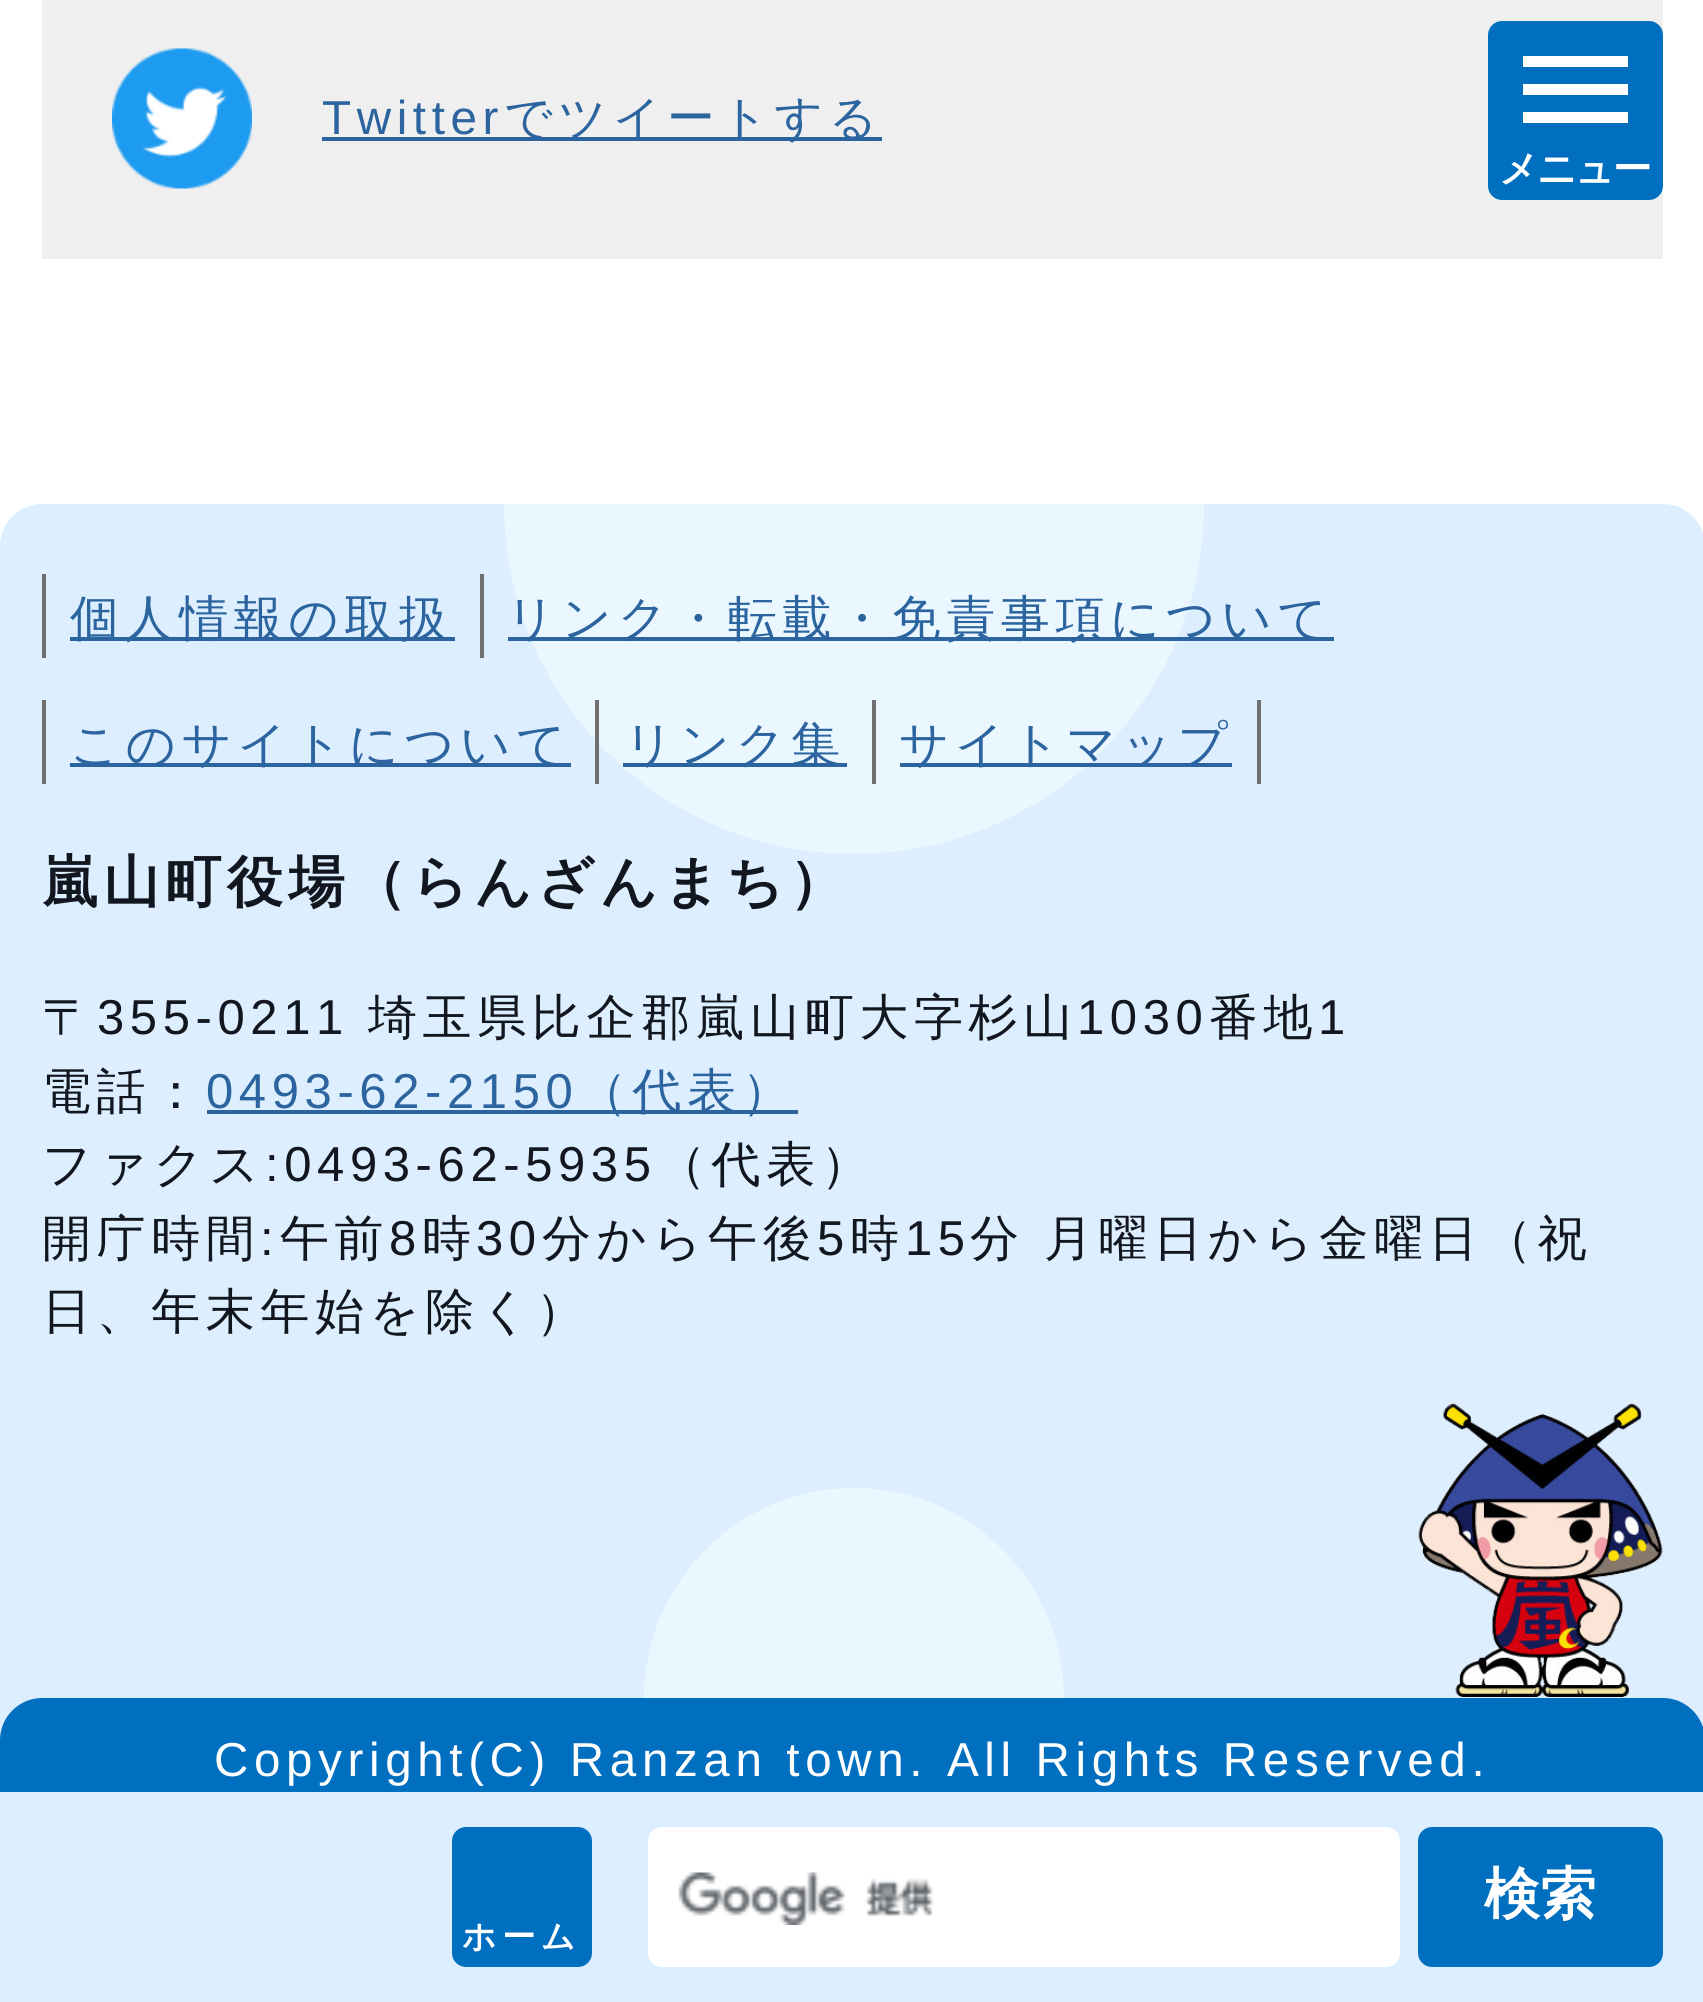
import math
import cairocffi as cairo

surface = cairo.ImageSurface(cairo.FORMAT_RGB24, 1703, 2002)
cr = cairo.Context(surface)
options = cairo.FontOptions()
options.set_hint_metrics(cairo.HINT_METRICS_OFF)
options.set_hint_style(cairo.HINT_STYLE_NONE)
cr.set_font_options(options)
cr.set_miter_limit(4)


def use_color(code):
    cr.set_source_rgb(*(v / 255 for v in bytes.fromhex(code[-6:])))


def spaced_text(x, y, s, letter, word):
    cr.move_to(x, y)
    for ch in s:
        cr.show_text(ch)
        cr.rel_move_to(letter + word * (ch == ' '), 0)


def round_rect(x, y, w, h, r):
    cr.new_sub_path()
    for i, (u, v) in enumerate([(x + w - r, y + h - r), (x + r, y + h - r), (x + r, y + r), (x + w - r, y + r)]):
        cr.arc(u, v, r, i * math.pi / 2, (i + 1) * math.pi / 2)
    cr.close_path()


def picture(path, x, y, w, h):
    cr.save()
    cr.set_source_surface(cairo.ImageSurface.create_from_png(path), x, y)
    cr.rectangle(x, y, w, h)
    cr.fill()
    cr.restore()


use_color("#ffffff")
cr.paint()
use_color("#efefef")
cr.rectangle(42, 0, 1621, 259)
cr.fill()
picture("img1.png", 112, 48, 140, 141)
cr.select_font_face("Liberation Sans")
cr.set_font_size(47.6)
use_color("#2b649e")
spaced_text(322, 134, "Twitter", 5.6, 0)
cr.rectangle(322, 137, 560, 4)
cr.fill()
cr.select_font_face("WenQuanYi Zen Hei Medium")
spaced_text(504, 134, "でツイートする", 5.6, 0)
use_color("#006fbf")
round_rect(1488, 21, 175, 179, 14)
cr.fill()
use_color("#ffffff")
cr.rectangle(1523, 56, 105, 11)
cr.fill()
cr.rectangle(1523, 84, 105, 11)
cr.fill()
cr.rectangle(1523, 112, 105, 11)
cr.fill()
cr.select_font_face("WenQuanYi Zen Hei", cairo.FONT_SLANT_NORMAL, cairo.FONT_WEIGHT_BOLD)
cr.set_font_size(39)
spaced_text(1499, 182, "メニュー", -2, 0)
use_color("#ddeefe")
cr.new_path()
cr.move_to(42, 504)
cr.line_to(1663, 504)
cr.curve_to(1686, 504, 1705, 523, 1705, 546)
cr.line_to(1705, 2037)
cr.line_to(0, 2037)
cr.line_to(0, 546)
cr.curve_to(0, 523, 19, 504, 42, 504)
cr.close_path()
cr.fill()
use_color("#006fbf")
cr.new_path()
cr.move_to(42, 1698)
cr.line_to(1663, 1698)
cr.curve_to(1686, 1698, 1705, 1717, 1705, 1740)
cr.line_to(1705, 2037)
cr.line_to(0, 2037)
cr.line_to(0, 1740)
cr.curve_to(0, 1717, 19, 1698, 42, 1698)
cr.close_path()
cr.fill()
use_color("#ddeefe")
cr.rectangle(0, 1792, 1703, 210)
cr.fill()
use_color("#ffffff")
round_rect(648, 1827, 752, 140, 14)
cr.fill()
picture("img2.png", 678, 1872, 257, 53)
use_color("#006fbf")
round_rect(1418, 1827, 245, 140, 14)
cr.fill()
cr.set_font_size(56)
use_color("#ffffff")
cr.move_to(1484, 1913)
cr.show_text("検索")
use_color("#006fbf")
round_rect(452, 1827, 140, 140, 14)
cr.fill()
cr.set_font_size(33.5)
use_color("#ffffff")
spaced_text(462, 1948, "ホーム", 5.6, 0)
use_color("#ebf7ff")
cr.new_path()
cr.move_to(504, 504)
cr.line_to(1204, 504)
cr.curve_to(1204, 697.5, 1047.5, 854, 854, 854)
cr.curve_to(660.5, 854, 504, 697.5, 504, 504)
cr.close_path()
cr.fill()
use_color("#707070")
cr.rectangle(42, 574, 4, 84)
cr.fill()
use_color("#2b649e")
cr.rectangle(70, 637, 385, 4)
cr.fill()
cr.select_font_face("WenQuanYi Zen Hei Medium")
cr.set_font_size(49)
spaced_text(70, 635, "個人情報の取扱", 5.6, 0)
use_color("#707070")
cr.rectangle(480, 574, 4, 84)
cr.fill()
use_color("#2b649e")
cr.rectangle(508, 637, 826, 4)
cr.fill()
spaced_text(506, 635, "リンク・転載・免責事項について", 5.6, 0)
use_color("#707070")
cr.rectangle(42, 700, 4, 84)
cr.fill()
use_color("#2b649e")
cr.rectangle(70, 763, 501, 4)
cr.fill()
spaced_text(70, 761, "このサイトについて", 5.6, 0)
use_color("#707070")
cr.rectangle(595, 700, 4, 84)
cr.fill()
use_color("#2b649e")
cr.rectangle(623, 763, 224, 4)
cr.fill()
spaced_text(624, 761, "リンク集", 5.6, 0)
use_color("#707070")
cr.rectangle(1257, 700, 4, 84)
cr.fill()
cr.rectangle(872, 700, 4, 84)
cr.fill()
use_color("#2b649e")
cr.rectangle(900, 763, 332, 4)
cr.fill()
spaced_text(899, 761, "サイトマップ", 5.6, 0)
cr.select_font_face("WenQuanYi Zen Hei", cairo.FONT_SLANT_NORMAL, cairo.FONT_WEIGHT_BOLD)
cr.set_font_size(56)
use_color("#12171f")
spaced_text(42, 901, "嵐山町役場（らんざんまち）", 5.6, 0)
cr.select_font_face("WenQuanYi Zen Hei Medium")
cr.set_font_size(49)
spaced_text(42, 1034, "〒", 5.6, 0)
cr.select_font_face("Liberation Sans")
spaced_text(97, 1034, "355-0211", 5.6, 0)
cr.select_font_face("WenQuanYi Zen Hei Medium")
spaced_text(368, 1034, "埼玉県比企郡嵐山町大字杉山", 5.6, 0)
cr.select_font_face("Liberation Sans")
spaced_text(1077, 1034, "1030", 5.6, 0)
cr.select_font_face("WenQuanYi Zen Hei Medium")
spaced_text(1209, 1034, "番地", 5.6, 0)
cr.select_font_face("Liberation Sans")
spaced_text(1318, 1034, "1", 5.6, 0)
cr.select_font_face("WenQuanYi Zen Hei Medium")
spaced_text(42, 1108, "電話：", 5.6, 0)
cr.select_font_face("Liberation Sans")
use_color("#2b649e")
spaced_text(206, 1108, "0493-62-2150", 5.6, 0)
cr.rectangle(207, 1110, 591, 4)
cr.fill()
cr.select_font_face("WenQuanYi Zen Hei Medium")
spaced_text(578, 1108, "（代表）", 5.6, 0)
use_color("#12171f")
spaced_text(42, 1181, "ファクス", 5.6, 0)
cr.select_font_face("Liberation Sans")
spaced_text(265, 1181, ":0493-62-5935", 5.6, 0)
cr.select_font_face("WenQuanYi Zen Hei Medium")
spaced_text(657, 1181, "（代表）", 5.6, 0)
spaced_text(42, 1255, "開庁時間", 5.6, 0)
cr.select_font_face("Liberation Sans")
spaced_text(260, 1255, ":", 5.6, 0)
cr.select_font_face("WenQuanYi Zen Hei Medium")
spaced_text(280, 1255, "午前", 5.6, 0)
cr.select_font_face("Liberation Sans")
spaced_text(389, 1255, "8", 5.6, 0)
cr.select_font_face("WenQuanYi Zen Hei Medium")
spaced_text(422, 1255, "時", 5.6, 0)
cr.select_font_face("Liberation Sans")
spaced_text(476, 1255, "30", 5.6, 0)
cr.select_font_face("WenQuanYi Zen Hei Medium")
spaced_text(542, 1255, "分から午後", 5.6, 0)
cr.select_font_face("Liberation Sans")
spaced_text(817, 1255, "5", 5.6, 0)
cr.select_font_face("WenQuanYi Zen Hei Medium")
spaced_text(850, 1255, "時", 5.6, 0)
cr.select_font_face("Liberation Sans")
spaced_text(905, 1255, "15", 5.6, 0)
cr.select_font_face("WenQuanYi Zen Hei Medium")
spaced_text(970, 1255, "分", 5.6, 0)
spaced_text(1044, 1255, "月曜日から金曜日（祝", 5.6, 0)
spaced_text(42, 1328, "日、年末年始を除く）", 5.6, 0)
use_color("#ebf7ff")
cr.new_path()
cr.move_to(854, 1488)
cr.curve_to(970, 1488, 1064, 1582, 1064, 1698)
cr.line_to(644, 1698)
cr.curve_to(644, 1582, 738, 1488, 854, 1488)
cr.close_path()
cr.fill()
picture("img3.png", 1417, 1403, 246, 294)
cr.select_font_face("Liberation Sans")
cr.set_font_size(47.6)
use_color("#ffffff")
spaced_text(214, 1776, "Copyright(C) Ranzan town. All Rights Reserved.", 5.6, 0)
surface.write_to_png("result.png")
